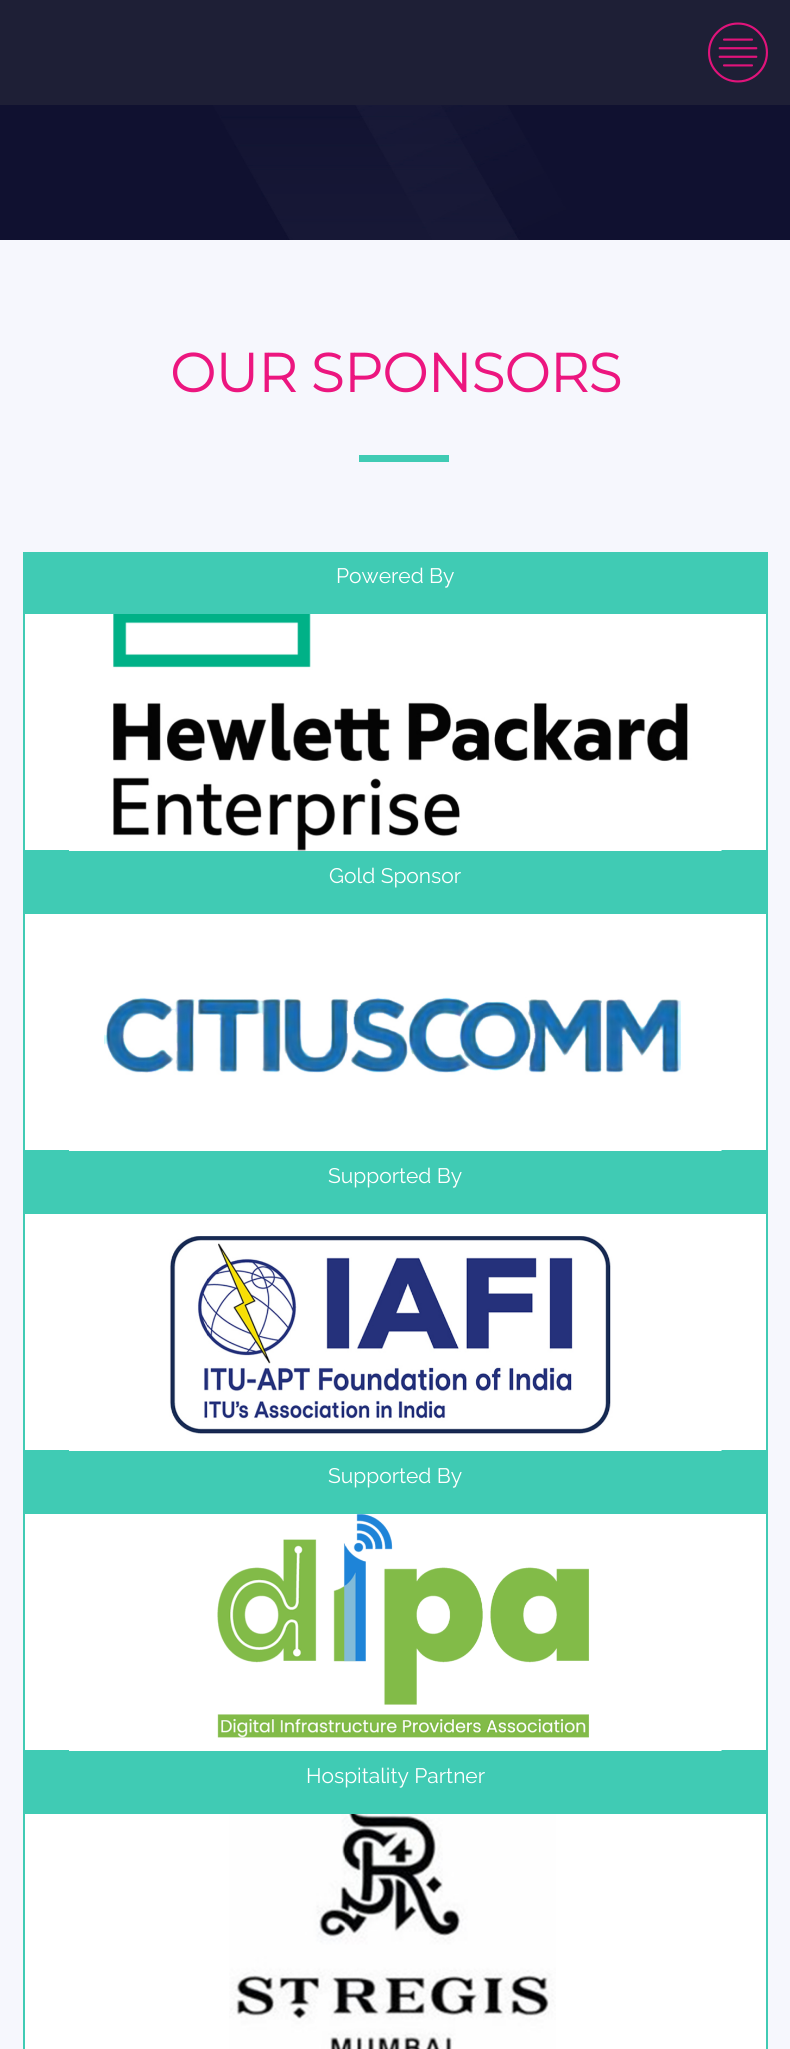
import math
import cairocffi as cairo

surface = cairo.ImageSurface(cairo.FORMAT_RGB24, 790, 2049)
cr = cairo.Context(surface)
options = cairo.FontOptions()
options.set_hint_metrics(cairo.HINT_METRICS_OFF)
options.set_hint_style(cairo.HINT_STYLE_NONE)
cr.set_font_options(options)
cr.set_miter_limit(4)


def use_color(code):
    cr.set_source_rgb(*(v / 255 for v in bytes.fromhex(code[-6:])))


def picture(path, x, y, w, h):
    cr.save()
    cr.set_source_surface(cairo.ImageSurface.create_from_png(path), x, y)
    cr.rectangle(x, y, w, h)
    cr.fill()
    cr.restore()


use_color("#f6f7fd")
cr.paint()
use_color("#1e1f36")
cr.rectangle(0, 0, 790, 105)
cr.fill()
picture("img1.png", 708, 22, 60, 61)
picture("img2.png", 0, 105, 790, 135)
cr.select_font_face("Montserrat", cairo.FONT_SLANT_NORMAL, cairo.FONT_WEIGHT_BOLD)
cr.set_font_size(54)
use_color("#ec167f")
cr.move_to(170, 392)
cr.show_text("OUR SPONSORS")
use_color("#40cbb4")
cr.rectangle(359, 455, 90, 7)
cr.fill()
cr.rectangle(23, 552, 745, 60)
cr.fill()
cr.select_font_face("Raleway")
cr.set_font_size(21)
use_color("#ffffff")
cr.move_to(336, 583)
cr.show_text("Powered By")
cr.rectangle(24, 613, 743, 238)
cr.fill_preserve()
use_color("#40cbb4")
cr.stroke()
picture("img3.png", 69, 614, 653, 237)
cr.rectangle(23, 852, 745, 60)
cr.fill()
use_color("#ffffff")
cr.move_to(329, 883)
cr.show_text("Gold Sponsor")
cr.rectangle(24, 913, 743, 238)
cr.fill_preserve()
use_color("#40cbb4")
cr.stroke()
picture("img4.png", 69, 997, 653, 154)
cr.rectangle(23, 1152, 745, 60)
cr.fill()
use_color("#ffffff")
cr.move_to(328, 1183)
cr.show_text("Supported By")
cr.rectangle(24, 1213, 743, 238)
cr.fill_preserve()
use_color("#40cbb4")
cr.stroke()
picture("img5.png", 69, 1236, 653, 215)
cr.rectangle(23, 1452, 745, 60)
cr.fill()
use_color("#ffffff")
cr.move_to(328, 1483)
cr.show_text("Supported By")
cr.rectangle(24, 1513, 743, 238)
cr.fill_preserve()
use_color("#40cbb4")
cr.stroke()
picture("img6.png", 69, 1514, 653, 237)
cr.rectangle(23, 1752, 745, 60)
cr.fill()
use_color("#ffffff")
cr.move_to(306, 1783)
cr.show_text("Hospitality Partner")
cr.rectangle(24, 1813, 743, 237)
cr.fill_preserve()
use_color("#40cbb4")
cr.stroke()
picture("img7.png", 229, 1814, 327, 235)
surface.write_to_png("result.png")
